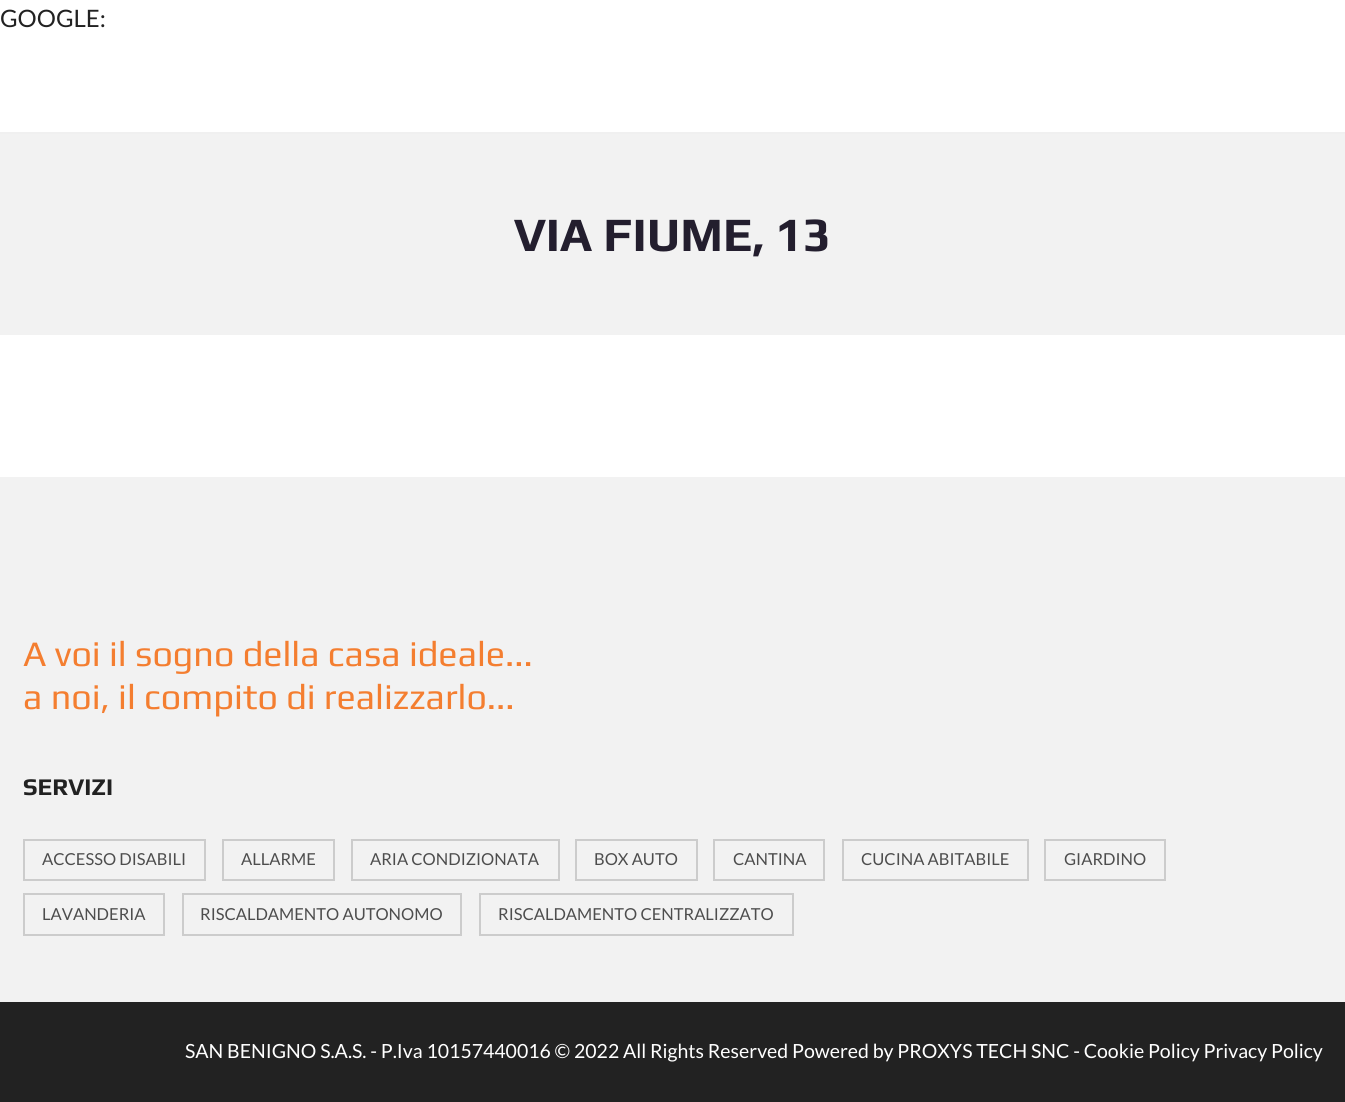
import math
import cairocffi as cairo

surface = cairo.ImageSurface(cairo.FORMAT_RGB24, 1345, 1102)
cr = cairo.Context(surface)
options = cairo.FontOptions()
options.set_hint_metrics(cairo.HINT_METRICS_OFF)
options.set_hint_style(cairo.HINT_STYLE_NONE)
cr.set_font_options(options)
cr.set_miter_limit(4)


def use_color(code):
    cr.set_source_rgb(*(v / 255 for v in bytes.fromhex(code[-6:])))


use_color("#ffffff")
cr.paint()
cr.select_font_face("Lato")
cr.set_font_size(24)
use_color("#222222")
cr.move_to(0, 27)
cr.show_text("GOOGLE:")
use_color("#f0f0f0")
cr.rectangle(0, 132, 1345, 2)
cr.fill()
use_color("#f2f2f2")
cr.rectangle(0, 134, 1345, 201)
cr.fill()
cr.select_font_face("Play", cairo.FONT_SLANT_NORMAL, cairo.FONT_WEIGHT_BOLD)
cr.set_font_size(48)
use_color("#231e2e")
cr.move_to(514, 251)
cr.show_text("VIA FIUME, 13")
use_color("#f2f2f2")
cr.rectangle(0, 477, 1345, 525)
cr.fill()
cr.select_font_face("Play")
cr.set_font_size(36)
use_color("#f47e30")
cr.move_to(23, 666)
cr.show_text("A voi il sogno della casa ideale...")
cr.move_to(23, 709)
cr.show_text("a noi, il compito di realizzarlo...")
cr.select_font_face("Play", cairo.FONT_SLANT_NORMAL, cairo.FONT_WEIGHT_BOLD)
cr.set_font_size(24)
use_color("#222222")
cr.move_to(23, 795)
cr.show_text("SERVIZI")
cr.rectangle(24, 840, 181, 40)
use_color("#cccccc")
cr.stroke()
cr.select_font_face("Lato")
cr.set_font_size(16.5)
use_color("#4d4d4d")
cr.move_to(42, 865)
cr.show_text("ACCESSO DISABILI")
cr.rectangle(223, 840, 111, 40)
use_color("#cccccc")
cr.stroke()
use_color("#4d4d4d")
cr.move_to(241, 865)
cr.show_text("ALLARME")
cr.rectangle(352, 840, 207, 40)
use_color("#cccccc")
cr.stroke()
use_color("#4d4d4d")
cr.move_to(370, 865)
cr.show_text("ARIA CONDIZIONATA")
cr.rectangle(576, 840, 121, 40)
use_color("#cccccc")
cr.stroke()
use_color("#4d4d4d")
cr.move_to(594, 865)
cr.show_text("BOX AUTO")
cr.rectangle(714, 840, 110, 40)
use_color("#cccccc")
cr.stroke()
use_color("#4d4d4d")
cr.move_to(733, 865)
cr.show_text("CANTINA")
cr.rectangle(843, 840, 185, 40)
use_color("#cccccc")
cr.stroke()
use_color("#4d4d4d")
cr.move_to(861, 865)
cr.show_text("CUCINA ABITABILE")
cr.rectangle(1045, 840, 120, 40)
use_color("#cccccc")
cr.stroke()
use_color("#4d4d4d")
cr.move_to(1064, 865)
cr.show_text("GIARDINO")
cr.rectangle(24, 894, 140, 41)
use_color("#cccccc")
cr.stroke()
use_color("#4d4d4d")
cr.move_to(42, 920)
cr.show_text("LAVANDERIA")
cr.rectangle(183, 894, 278, 41)
use_color("#cccccc")
cr.stroke()
use_color("#4d4d4d")
cr.move_to(200, 920)
cr.show_text("RISCALDAMENTO AUTONOMO")
cr.rectangle(480, 894, 313, 41)
use_color("#cccccc")
cr.stroke()
use_color("#4d4d4d")
cr.move_to(498, 920)
cr.show_text("RISCALDAMENTO CENTRALIZZATO")
use_color("#222222")
cr.rectangle(0, 1002, 1345, 100)
cr.fill()
cr.set_font_size(19.5)
use_color("#ffffff")
cr.move_to(185, 1058)
cr.show_text("SAN BENIGNO S.A.S. - P.Iva 10157440016 © 2022 All Rights Reserved Powered by PROXYS TECH SNC - Cookie Policy Privacy Policy")
surface.write_to_png("result.png")
